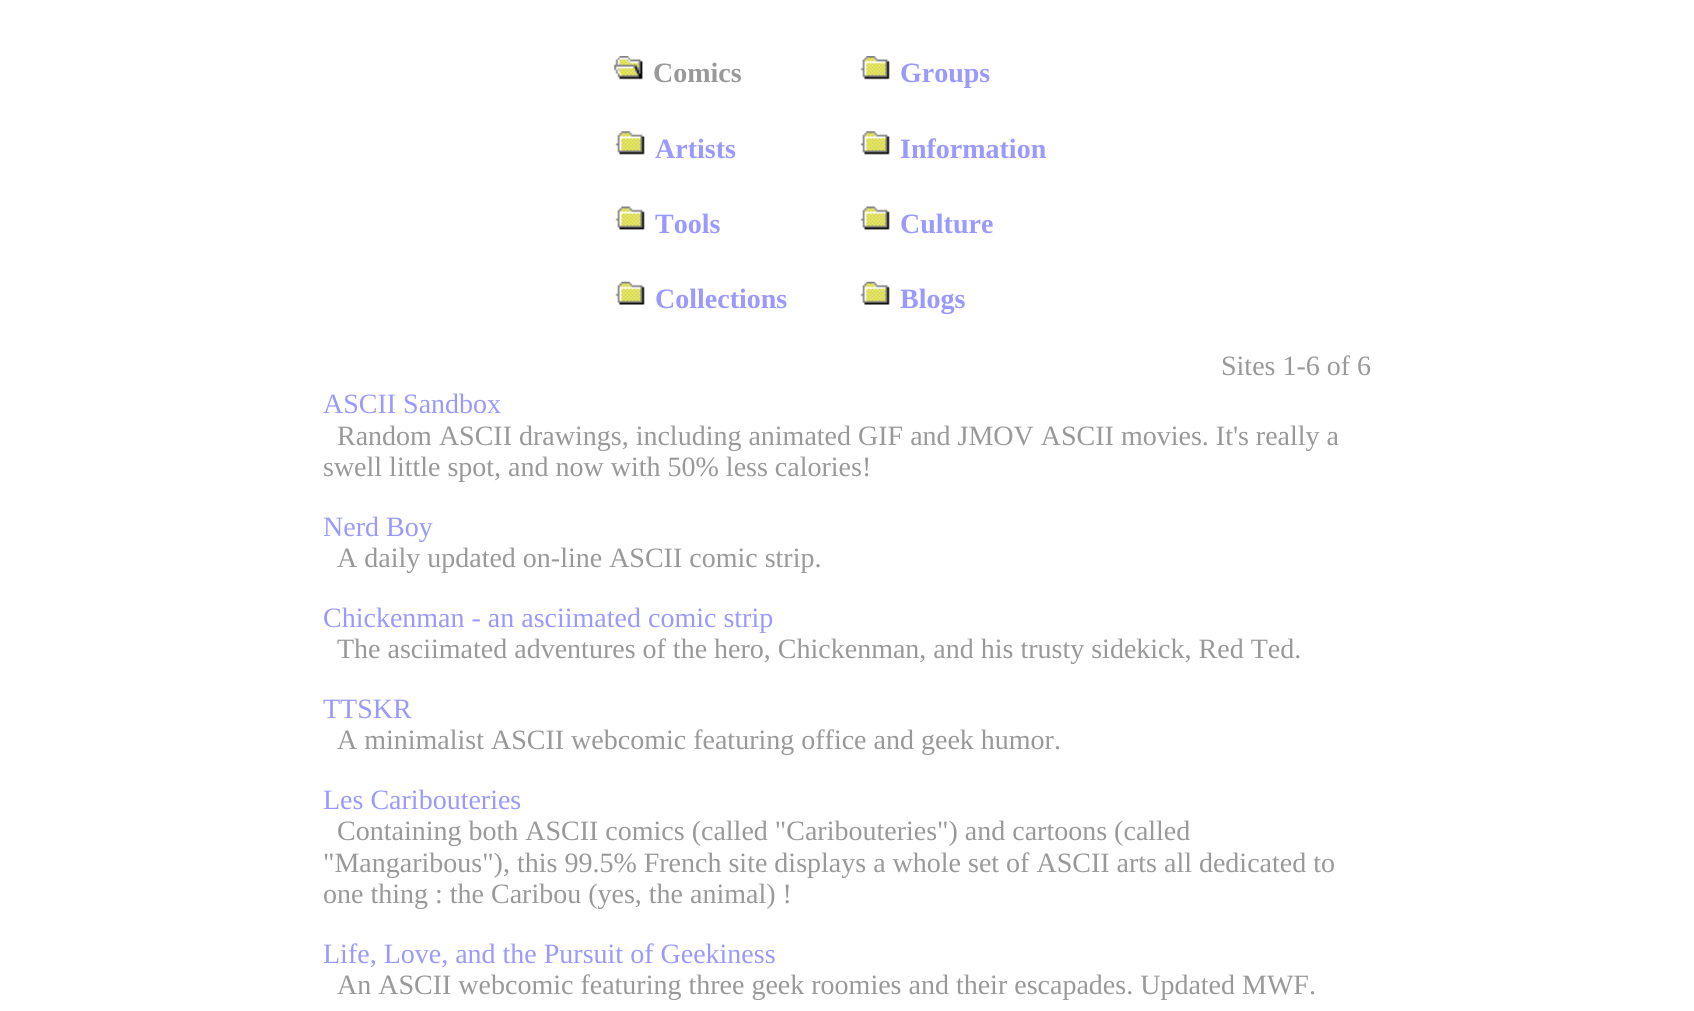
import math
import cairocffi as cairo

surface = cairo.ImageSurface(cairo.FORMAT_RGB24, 1694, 1011)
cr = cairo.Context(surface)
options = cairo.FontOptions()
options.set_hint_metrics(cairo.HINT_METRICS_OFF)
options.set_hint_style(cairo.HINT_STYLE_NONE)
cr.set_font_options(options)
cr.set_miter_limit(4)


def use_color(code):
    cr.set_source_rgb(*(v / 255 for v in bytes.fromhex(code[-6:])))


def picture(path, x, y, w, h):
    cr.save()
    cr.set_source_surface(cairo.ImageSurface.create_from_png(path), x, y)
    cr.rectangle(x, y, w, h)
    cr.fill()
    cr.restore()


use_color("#ffffff")
cr.paint()
picture("img1.png", 614, 56, 29, 24)
cr.select_font_face("Liberation Serif", cairo.FONT_SLANT_NORMAL, cairo.FONT_WEIGHT_BOLD)
cr.set_font_size(28)
use_color("#999999")
cr.move_to(653, 82)
cr.show_text("Comics")
picture("img2.png", 860, 56, 30, 24)
use_color("#9999ff")
cr.move_to(900, 82)
cr.show_text("Groups")
picture("img3.png", 615, 131, 30, 24)
cr.move_to(655, 158)
cr.show_text("Artists")
picture("img3.png", 860, 131, 30, 24)
cr.move_to(900, 158)
cr.show_text("Information")
picture("img4.png", 615, 206, 30, 24)
cr.move_to(655, 233)
cr.show_text("Tools")
picture("img4.png", 860, 206, 30, 24)
cr.move_to(900, 233)
cr.show_text("Culture")
picture("img5.png", 615, 281, 30, 24)
cr.move_to(655, 308)
cr.show_text("Collections")
picture("img5.png", 860, 281, 30, 24)
cr.move_to(900, 308)
cr.show_text("Blogs")
cr.select_font_face("Liberation Serif")
use_color("#999999")
cr.move_to(1221, 375)
cr.show_text("Sites 1-6 of 6")
use_color("#9999ff")
cr.move_to(323, 413)
cr.show_text("ASCII Sandbox")
use_color("#999999")
cr.move_to(337, 445)
cr.show_text("Random ASCII drawings, including animated GIF and JMOV ASCII movies. It's really a")
cr.move_to(323, 476)
cr.show_text("swell little spot, and now with 50% less calories!")
use_color("#9999ff")
cr.move_to(323, 536)
cr.show_text("Nerd Boy")
use_color("#999999")
cr.move_to(337, 567)
cr.show_text("A daily updated on-line ASCII comic strip.")
use_color("#9999ff")
cr.move_to(323, 627)
cr.show_text("Chickenman - an asciimated comic strip")
use_color("#999999")
cr.move_to(337, 658)
cr.show_text("The asciimated adventures of the hero, Chickenman, and his trusty sidekick, Red Ted.")
use_color("#9999ff")
cr.move_to(323, 718)
cr.show_text("TTSKR")
use_color("#999999")
cr.move_to(337, 749)
cr.show_text("A minimalist ASCII webcomic featuring office and geek humor.")
use_color("#9999ff")
cr.move_to(323, 809)
cr.show_text("Les Caribouteries")
use_color("#999999")
cr.move_to(337, 840)
cr.show_text("Containing both ASCII comics (called \"Caribouteries\") and cartoons (called")
cr.move_to(323, 872)
cr.show_text("\"Mangaribous\"), this 99.5% French site displays a whole set of ASCII arts all dedicated to")
cr.move_to(323, 903)
cr.show_text("one thing : the Caribou (yes, the animal) !")
use_color("#9999ff")
cr.move_to(323, 963)
cr.show_text("Life, Love, and the Pursuit of Geekiness")
use_color("#999999")
cr.move_to(337, 994)
cr.show_text("An ASCII webcomic featuring three geek roomies and their escapades. Updated MWF.")
surface.write_to_png("result.png")
